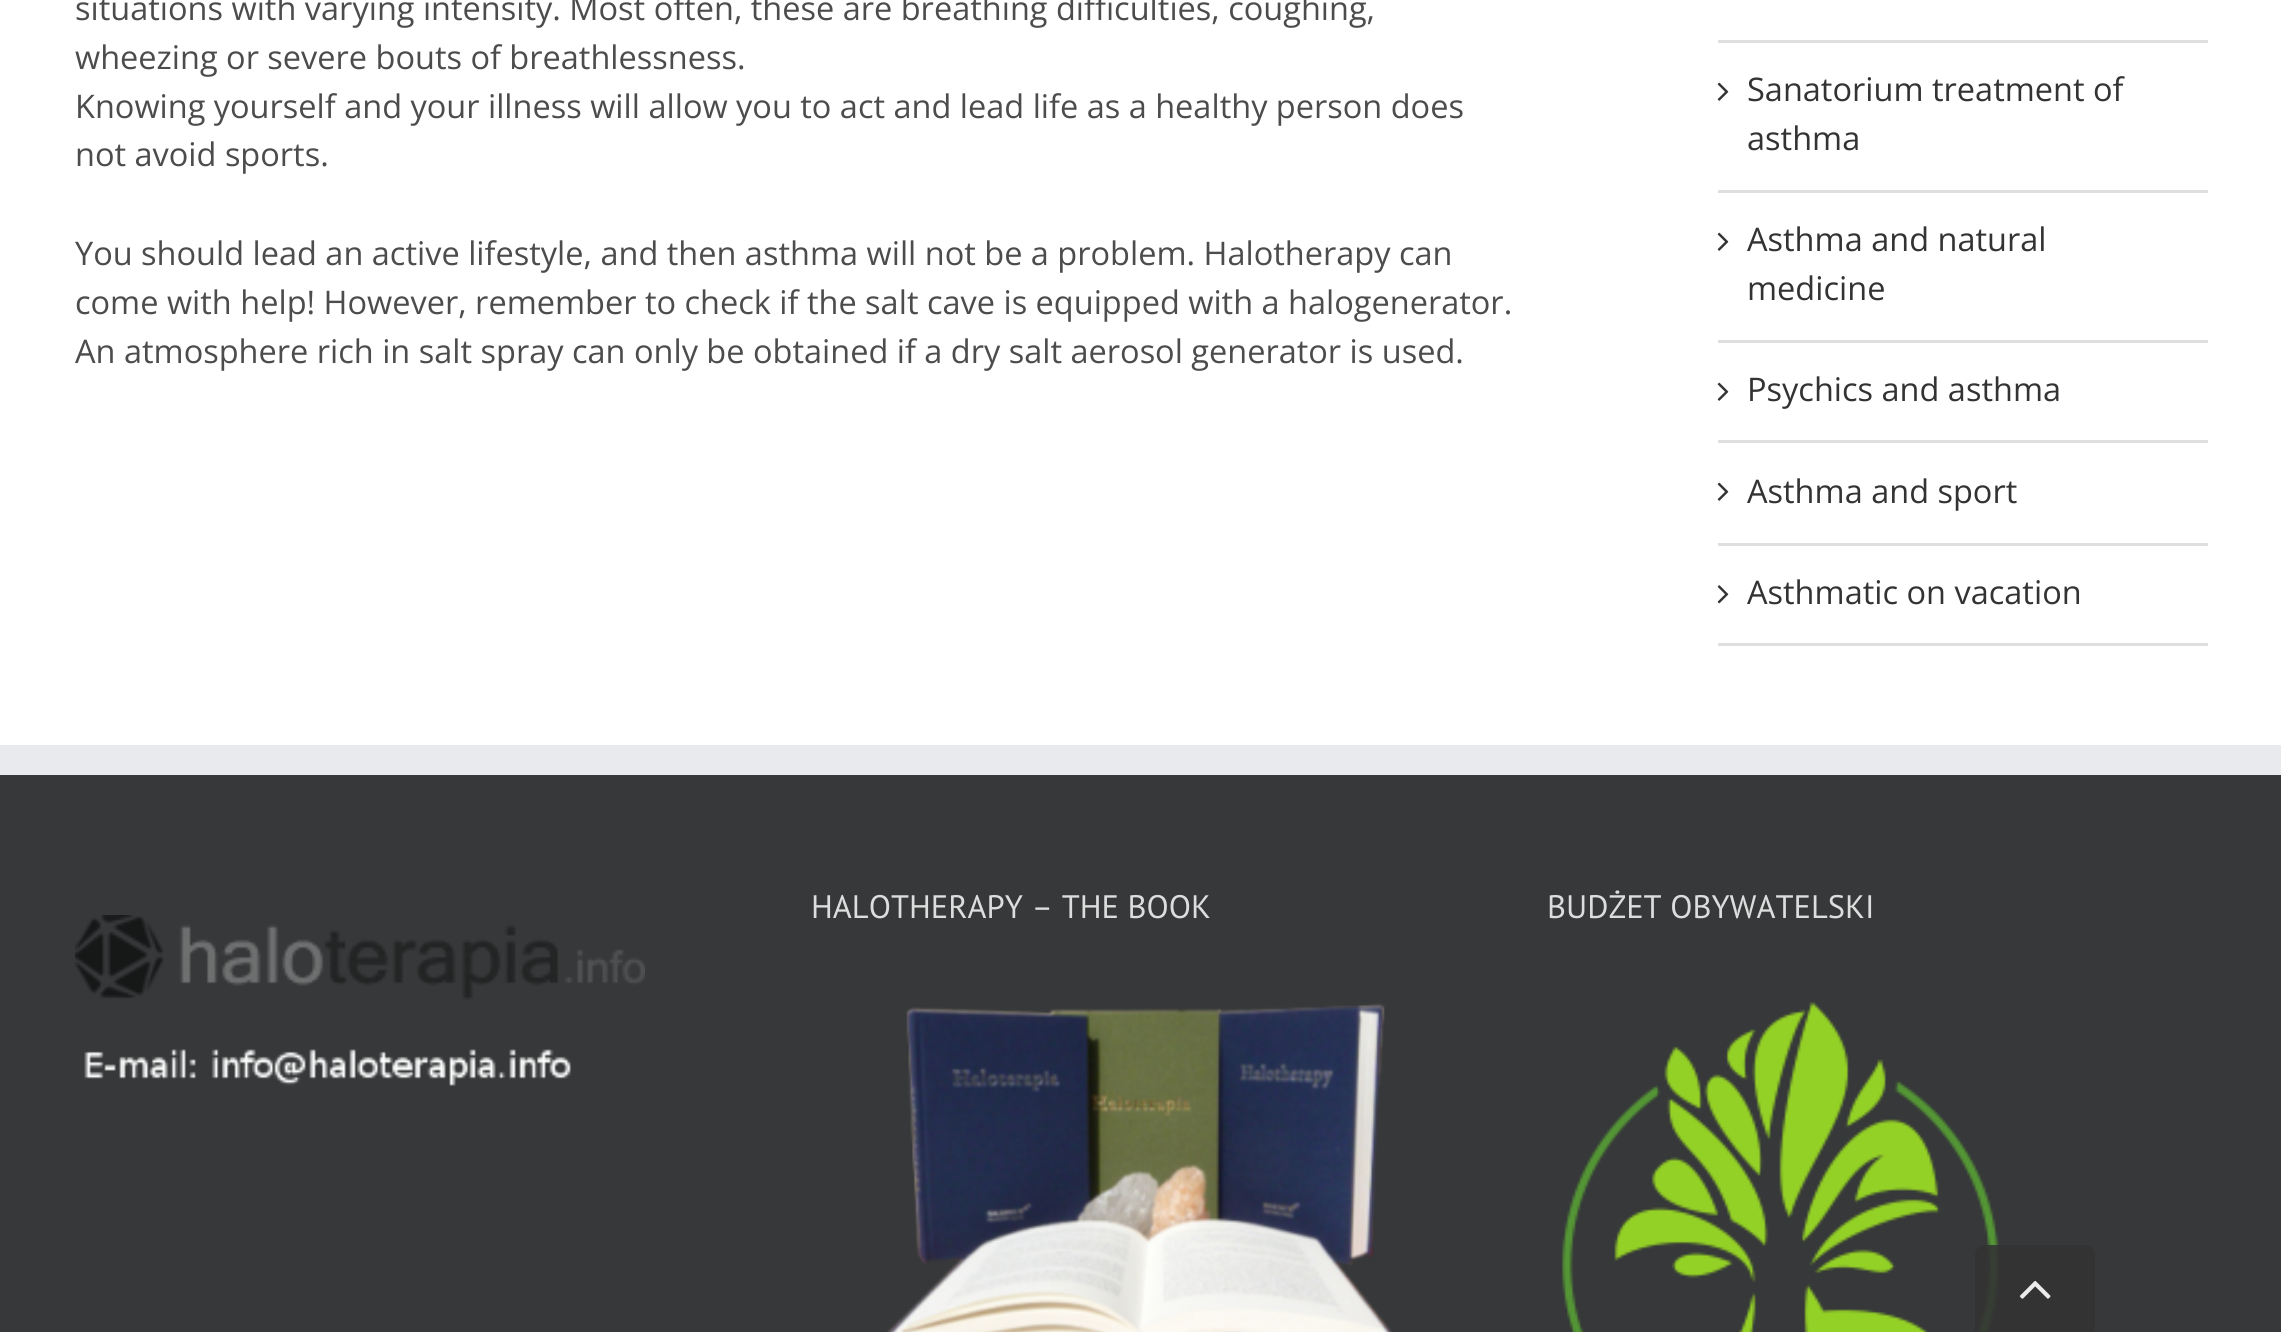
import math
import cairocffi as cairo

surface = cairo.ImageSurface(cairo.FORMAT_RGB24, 2281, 1332)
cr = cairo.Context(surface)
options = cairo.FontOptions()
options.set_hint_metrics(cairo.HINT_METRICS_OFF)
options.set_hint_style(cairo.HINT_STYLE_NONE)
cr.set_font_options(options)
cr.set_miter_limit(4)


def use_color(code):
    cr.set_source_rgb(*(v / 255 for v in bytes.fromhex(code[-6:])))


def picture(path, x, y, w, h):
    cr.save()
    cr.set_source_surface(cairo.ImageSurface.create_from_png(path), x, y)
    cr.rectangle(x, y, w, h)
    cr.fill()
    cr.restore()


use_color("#ffffff")
cr.paint()
cr.select_font_face("Open Sans")
cr.set_font_size(32.5)
use_color("#4c4c4c")
cr.move_to(75, 20)
cr.show_text("situations with varying intensity. Most often, these are breathing difficulties, coughing,")
cr.move_to(75, 69)
cr.show_text("wheezing or severe bouts of breathlessness.")
cr.move_to(75, 118)
cr.show_text("Knowing yourself and your illness will allow you to act and lead life as a healthy person does")
cr.move_to(75, 166)
cr.show_text("not avoid sports.")
cr.move_to(75, 265)
cr.show_text("You should lead an active lifestyle, and then asthma will not be a problem. Halotherapy can")
cr.move_to(75, 314)
cr.show_text("come with help! However, remember to check if the salt cave is equipped with a halogenerator.")
cr.move_to(75, 363)
cr.show_text("An atmosphere rich in salt spray can only be obtained if a dry salt aerosol generator is used.")
use_color("#e0dede")
cr.rectangle(1718, 40, 490, 3)
cr.fill()
cr.rectangle(1718, 190, 490, 3)
cr.fill()
picture("img1.png", 1717, 82, 12, 19)
use_color("#333333")
cr.move_to(1747, 101)
cr.show_text("Sanatorium treatment of")
cr.move_to(1747, 150)
cr.show_text("asthma")
use_color("#e0dede")
cr.rectangle(1718, 340, 490, 3)
cr.fill()
picture("img1.png", 1717, 232, 12, 19)
use_color("#333333")
cr.move_to(1747, 251)
cr.show_text("Asthma and natural")
cr.move_to(1747, 300)
cr.show_text("medicine")
use_color("#e0dede")
cr.rectangle(1718, 440, 490, 3)
cr.fill()
picture("img1.png", 1717, 382, 12, 19)
use_color("#333333")
cr.move_to(1747, 401)
cr.show_text("Psychics and asthma")
use_color("#e0dede")
cr.rectangle(1718, 543, 490, 3)
cr.fill()
picture("img1.png", 1717, 482, 12, 19)
use_color("#333333")
cr.move_to(1747, 503)
cr.show_text("Asthma and sport")
use_color("#e0dede")
cr.rectangle(1718, 643, 490, 3)
cr.fill()
picture("img2.png", 1717, 585, 12, 19)
use_color("#333333")
cr.move_to(1747, 604)
cr.show_text("Asthmatic on vacation")
use_color("#363839")
cr.rectangle(0, 775, 2281, 557)
cr.fill()
use_color("#e9eaee")
cr.rectangle(0, 745, 2281, 30)
cr.fill()
cr.select_font_face("PT Sans")
use_color("#dddddd")
cr.move_to(811, 918)
cr.show_text("HALOTHERAPY – THE BOOK")
picture("img3.png", 886, 1003, 507, 329)
cr.move_to(1547, 918)
cr.show_text("BUDŻET OBYWATELSKI")
picture("img4.png", 1561, 1002, 439, 330)
picture("img5.png", 75, 915, 570, 85)
picture("img6.png", 84, 1049, 487, 37)
cr.set_source_rgba(0.2, 0.2, 0.2, 0.9)
cr.new_path()
cr.move_to(1985, 1245)
cr.line_to(2085, 1245)
cr.curve_to(2090.5, 1245, 2095, 1249.5, 2095, 1255)
cr.line_to(2095, 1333)
cr.line_to(1975, 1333)
cr.line_to(1975, 1255)
cr.curve_to(1975, 1249.5, 1979.5, 1245, 1985, 1245)
cr.close_path()
cr.fill()
picture("img7.png", 2019, 1280, 32, 19)
surface.write_to_png("result.png")
